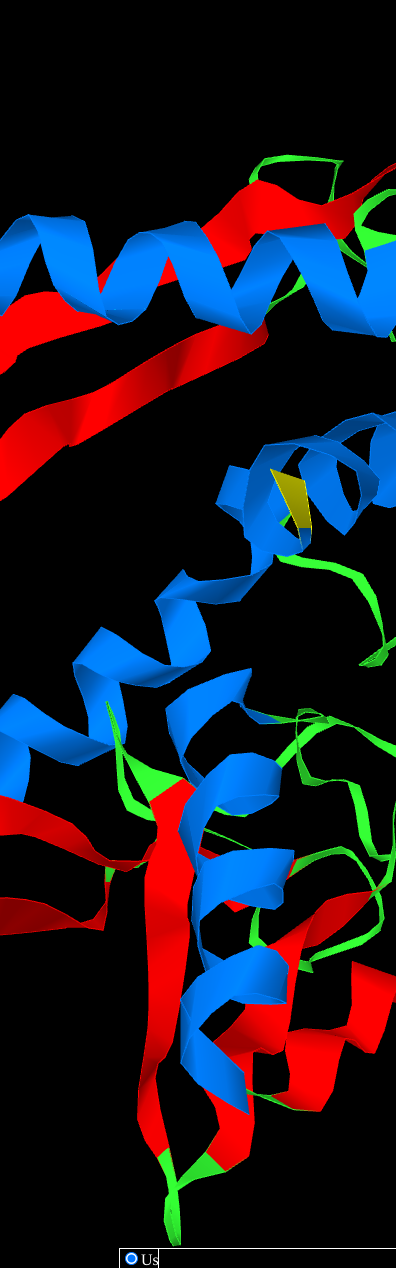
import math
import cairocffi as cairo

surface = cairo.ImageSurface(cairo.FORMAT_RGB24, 396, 1268)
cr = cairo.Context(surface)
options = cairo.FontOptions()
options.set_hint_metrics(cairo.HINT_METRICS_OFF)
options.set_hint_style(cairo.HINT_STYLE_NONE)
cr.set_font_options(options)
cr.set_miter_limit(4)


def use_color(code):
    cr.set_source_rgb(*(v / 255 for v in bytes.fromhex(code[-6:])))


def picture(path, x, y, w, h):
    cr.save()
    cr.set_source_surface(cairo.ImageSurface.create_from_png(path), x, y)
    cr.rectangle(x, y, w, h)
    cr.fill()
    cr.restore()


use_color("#000000")
cr.paint()
picture("img1.png", 0, 154, 396, 1093)
cr.save()
cr.rectangle(119, 1248, 237, 20)
cr.clip()
cr.rectangle(119.5, 1248.5, 238, 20)
use_color("#ffffff")
cr.set_line_width(1)
cr.stroke()
cr.restore()
use_color("#ffffff")
cr.arc(131.5, 1258.5, 6, 0, 2 * math.pi)
cr.fill_preserve()
use_color("#0075ff")
cr.set_line_width(1)
cr.stroke()
cr.arc(131.5, 1258.5, 4, 0, 2 * math.pi)
cr.fill()
cr.select_font_face("Liberation Serif")
cr.set_font_size(16)
use_color("#ffffff")
cr.move_to(141, 1265)
cr.show_text("Us")
cr.rectangle(158.5, 1248.5, 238, 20)
cr.stroke()
surface.write_to_png("result.png")
